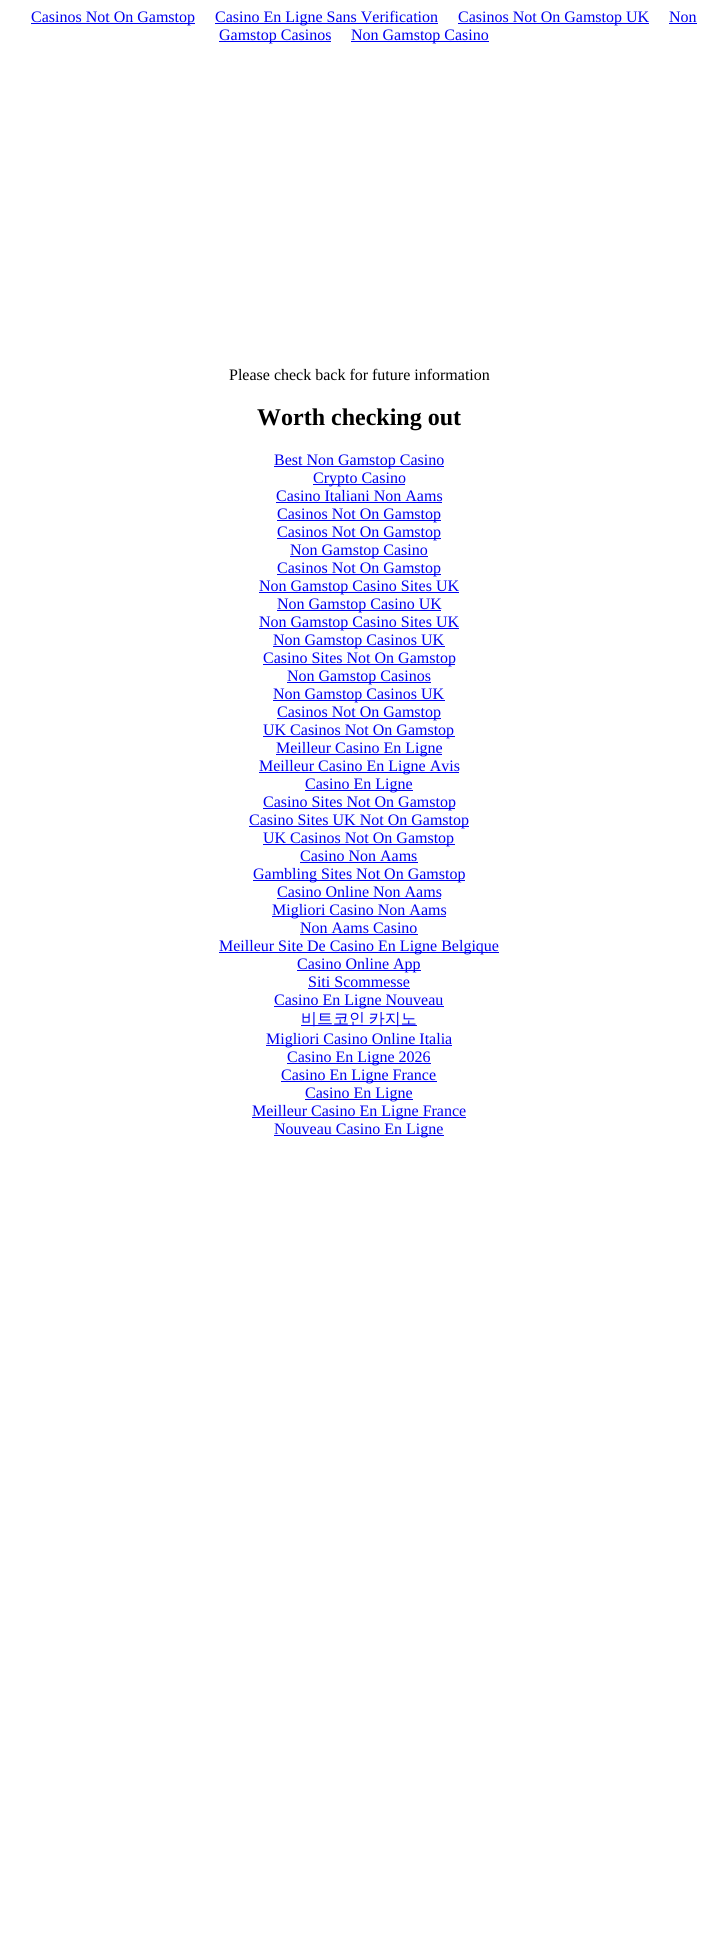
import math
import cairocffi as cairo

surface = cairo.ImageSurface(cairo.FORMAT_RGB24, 718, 1936)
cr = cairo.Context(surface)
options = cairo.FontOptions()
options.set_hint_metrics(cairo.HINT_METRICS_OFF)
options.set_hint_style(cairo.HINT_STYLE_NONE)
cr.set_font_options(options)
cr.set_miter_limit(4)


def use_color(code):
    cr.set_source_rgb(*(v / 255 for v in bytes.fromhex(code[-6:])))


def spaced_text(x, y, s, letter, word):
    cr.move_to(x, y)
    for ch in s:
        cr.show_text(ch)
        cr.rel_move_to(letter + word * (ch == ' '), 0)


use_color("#ffffff")
cr.paint()
use_color("#0000ee")
cr.rectangle(31, 23, 164, 1)
cr.fill()
cr.select_font_face("Liberation Serif")
cr.set_font_size(16)
cr.move_to(31, 22)
cr.show_text("Casinos Not On Gamstop")
cr.rectangle(215, 23, 223, 1)
cr.fill()
cr.move_to(215, 22)
cr.show_text("Casino En Ligne Sans Verification")
cr.rectangle(458, 23, 191, 1)
cr.fill()
cr.move_to(458, 22)
cr.show_text("Casinos Not On Gamstop UK")
cr.move_to(669, 22)
cr.show_text("Non")
cr.rectangle(669, 23, 28, 1)
cr.fill()
cr.rectangle(219, 41, 112, 1)
cr.fill()
cr.move_to(219, 40)
cr.show_text("Gamstop Casinos")
cr.rectangle(351, 41, 138, 1)
cr.fill()
cr.move_to(351, 40)
cr.show_text("Non Gamstop Casino")
use_color("#000000")
cr.move_to(229, 380)
cr.show_text("Please check back for future information")
cr.select_font_face("Liberation Serif", cairo.FONT_SLANT_NORMAL, cairo.FONT_WEIGHT_BOLD)
cr.set_font_size(24)
cr.move_to(257, 425)
cr.show_text("Worth checking out")
use_color("#0000ee")
cr.rectangle(274, 466, 170, 1)
cr.fill()
cr.select_font_face("Liberation Serif")
cr.set_font_size(16)
cr.move_to(274, 465)
cr.show_text("Best Non Gamstop Casino")
cr.rectangle(313, 484, 92, 1)
cr.fill()
cr.move_to(313, 483)
cr.show_text("Crypto Casino")
cr.move_to(276, 501)
cr.show_text("Casino Italiani Non Aams")
cr.rectangle(276, 502, 166, 1)
cr.fill()
cr.rectangle(277, 520, 164, 1)
cr.fill()
cr.move_to(277, 519)
cr.show_text("Casinos Not On Gamstop")
cr.rectangle(277, 538, 164, 1)
cr.fill()
cr.move_to(277, 537)
cr.show_text("Casinos Not On Gamstop")
cr.rectangle(290, 556, 138, 1)
cr.fill()
cr.move_to(290, 555)
cr.show_text("Non Gamstop Casino")
cr.rectangle(277, 574, 164, 1)
cr.fill()
cr.move_to(277, 573)
cr.show_text("Casinos Not On Gamstop")
cr.rectangle(259, 592, 200, 1)
cr.fill()
cr.move_to(259, 591)
cr.show_text("Non Gamstop Casino Sites UK")
cr.rectangle(277, 610, 164, 1)
cr.fill()
cr.move_to(277, 609)
cr.show_text("Non Gamstop Casino UK")
cr.rectangle(259, 628, 200, 1)
cr.fill()
cr.move_to(259, 627)
cr.show_text("Non Gamstop Casino Sites UK")
cr.rectangle(273, 646, 172, 1)
cr.fill()
cr.move_to(273, 645)
cr.show_text("Non Gamstop Casinos UK")
cr.rectangle(263, 664, 192, 1)
cr.fill()
cr.move_to(263, 663)
cr.show_text("Casino Sites Not On Gamstop")
cr.rectangle(287, 682, 144, 1)
cr.fill()
cr.move_to(287, 681)
cr.show_text("Non Gamstop Casinos")
cr.rectangle(273, 700, 172, 1)
cr.fill()
cr.move_to(273, 699)
cr.show_text("Non Gamstop Casinos UK")
cr.rectangle(277, 718, 164, 1)
cr.fill()
cr.move_to(277, 717)
cr.show_text("Casinos Not On Gamstop")
cr.rectangle(263, 736, 192, 1)
cr.fill()
cr.move_to(263, 735)
cr.show_text("UK Casinos Not On Gamstop")
cr.rectangle(276, 754, 166, 1)
cr.fill()
cr.move_to(276, 753)
cr.show_text("Meilleur Casino En Ligne")
cr.rectangle(259, 772, 200, 1)
cr.fill()
cr.move_to(259, 771)
cr.show_text("Meilleur Casino En Ligne Avis")
cr.rectangle(305, 790, 108, 1)
cr.fill()
cr.move_to(305, 789)
cr.show_text("Casino En Ligne")
cr.rectangle(263, 808, 192, 1)
cr.fill()
cr.move_to(263, 807)
cr.show_text("Casino Sites Not On Gamstop")
cr.rectangle(249, 826, 220, 1)
cr.fill()
cr.move_to(249, 825)
cr.show_text("Casino Sites UK Not On Gamstop")
cr.rectangle(263, 844, 192, 1)
cr.fill()
cr.move_to(263, 843)
cr.show_text("UK Casinos Not On Gamstop")
cr.move_to(300, 861)
cr.show_text("Casino Non Aams")
cr.rectangle(300, 862, 118, 1)
cr.fill()
cr.rectangle(253, 880, 212, 1)
cr.fill()
cr.move_to(253, 879)
cr.show_text("Gambling Sites Not On Gamstop")
cr.move_to(277, 897)
cr.show_text("Casino Online Non Aams")
cr.rectangle(277, 898, 164, 1)
cr.fill()
cr.rectangle(272, 916, 174, 1)
cr.fill()
cr.move_to(272, 915)
cr.show_text("Migliori Casino Non Aams")
cr.move_to(300, 933)
cr.show_text("Non Aams Casino")
cr.rectangle(300, 934, 118, 1)
cr.fill()
cr.rectangle(219, 952, 280, 1)
cr.fill()
cr.move_to(219, 951)
cr.show_text("Meilleur Site De Casino En Ligne Belgique")
cr.rectangle(297, 970, 124, 1)
cr.fill()
cr.move_to(297, 969)
cr.show_text("Casino Online App")
cr.move_to(308, 987)
cr.show_text("Siti Scommesse")
cr.rectangle(308, 988, 102, 1)
cr.fill()
cr.rectangle(274, 1006, 170, 1)
cr.fill()
cr.move_to(274, 1005)
cr.show_text("Casino En Ligne Nouveau")
cr.rectangle(301, 1025, 116, 1)
cr.fill()
cr.select_font_face("WenQuanYi Zen Hei Medium")
spaced_text(301, 1024, "비트코인 카지노", 0, -1)
cr.rectangle(266, 1045, 186, 1)
cr.fill()
cr.select_font_face("Liberation Serif")
cr.move_to(266, 1044)
cr.show_text("Migliori Casino Online Italia")
cr.rectangle(287, 1063, 144, 1)
cr.fill()
cr.move_to(287, 1062)
cr.show_text("Casino En Ligne 2026")
cr.rectangle(281, 1081, 156, 1)
cr.fill()
cr.move_to(281, 1080)
cr.show_text("Casino En Ligne France")
cr.rectangle(305, 1099, 108, 1)
cr.fill()
cr.move_to(305, 1098)
cr.show_text("Casino En Ligne")
cr.rectangle(252, 1117, 214, 1)
cr.fill()
cr.move_to(252, 1116)
cr.show_text("Meilleur Casino En Ligne France")
cr.rectangle(274, 1135, 170, 1)
cr.fill()
cr.move_to(274, 1134)
cr.show_text("Nouveau Casino En Ligne")
surface.write_to_png("result.png")
